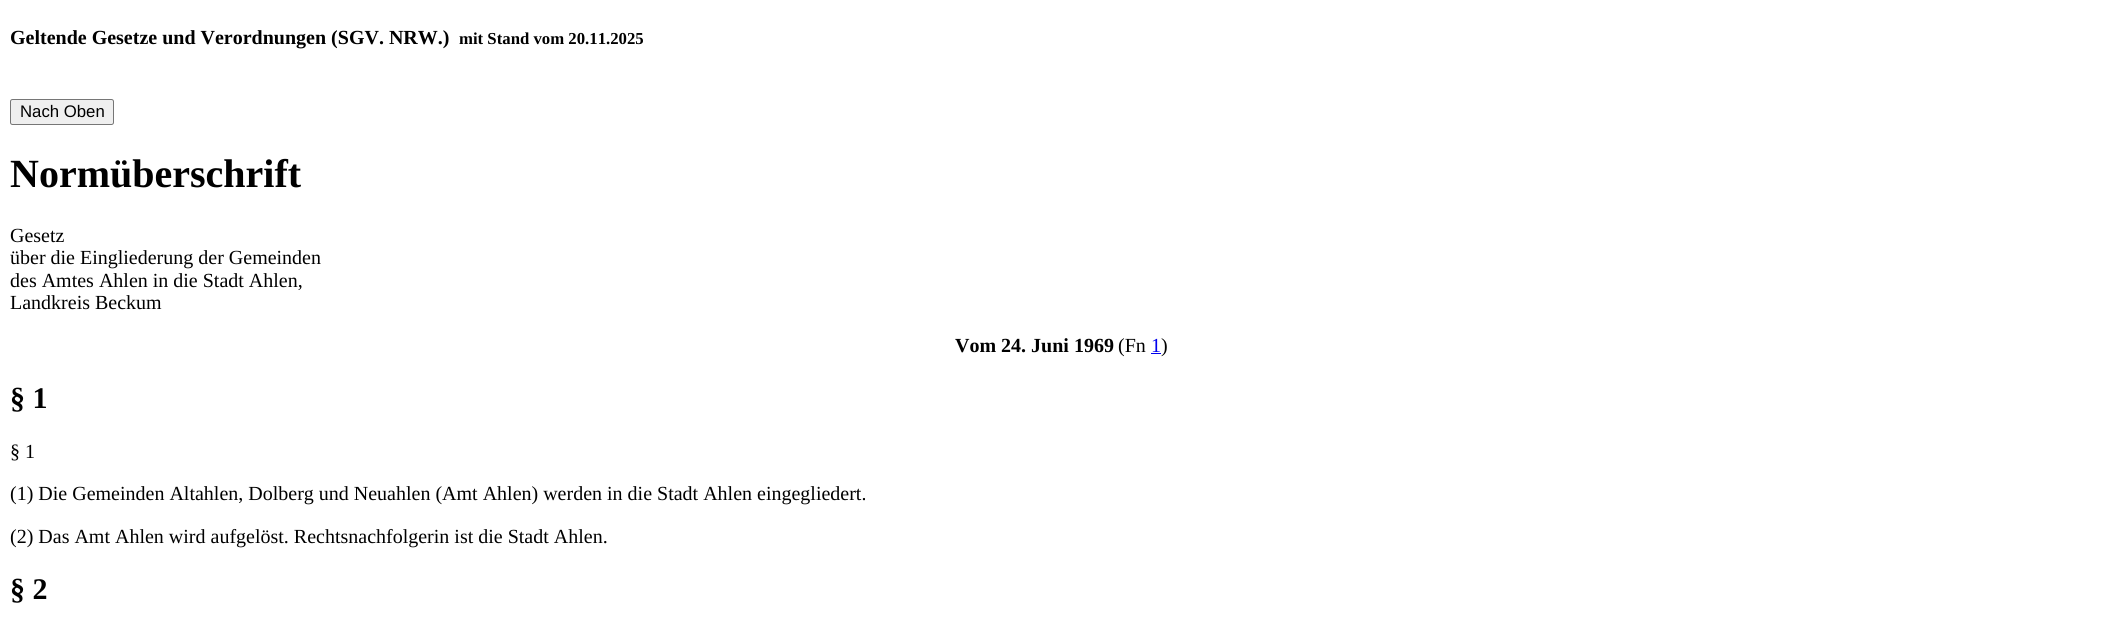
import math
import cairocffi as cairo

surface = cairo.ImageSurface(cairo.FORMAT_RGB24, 2122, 621)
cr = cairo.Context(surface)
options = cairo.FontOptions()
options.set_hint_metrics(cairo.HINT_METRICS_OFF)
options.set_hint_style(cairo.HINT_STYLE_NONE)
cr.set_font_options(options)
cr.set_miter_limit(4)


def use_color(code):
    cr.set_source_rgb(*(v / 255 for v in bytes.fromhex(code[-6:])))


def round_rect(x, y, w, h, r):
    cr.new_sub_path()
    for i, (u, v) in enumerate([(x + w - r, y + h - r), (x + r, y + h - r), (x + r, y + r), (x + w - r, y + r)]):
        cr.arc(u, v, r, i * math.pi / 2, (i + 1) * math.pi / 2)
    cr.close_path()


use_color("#ffffff")
cr.paint()
cr.select_font_face("Liberation Serif", cairo.FONT_SLANT_NORMAL, cairo.FONT_WEIGHT_BOLD)
cr.set_font_size(20)
use_color("#000000")
cr.move_to(10, 44)
cr.show_text("Geltende Gesetze und Verordnungen (SGV. NRW.)")
cr.set_font_size(16.75)
cr.move_to(459, 44)
cr.show_text("mit Stand vom 20.11.2025")
use_color("#efefef")
round_rect(10.5, 99.5, 103, 25, 2)
cr.fill_preserve()
use_color("#767676")
cr.set_line_width(1)
cr.stroke()
cr.select_font_face("Liberation Sans")
use_color("#000000")
cr.move_to(20, 117)
cr.show_text("Nach Oben")
cr.select_font_face("Liberation Serif", cairo.FONT_SLANT_NORMAL, cairo.FONT_WEIGHT_BOLD)
cr.set_font_size(40)
cr.move_to(10, 187)
cr.show_text("Normüberschrift")
cr.select_font_face("Liberation Serif")
cr.set_font_size(20)
cr.move_to(10, 242)
cr.show_text("Gesetz")
cr.move_to(10, 264)
cr.show_text("über die Eingliederung der Gemeinden")
cr.move_to(10, 287)
cr.show_text("des Amtes Ahlen in die Stadt Ahlen,")
cr.move_to(10, 309)
cr.show_text("Landkreis Beckum")
cr.select_font_face("Liberation Serif", cairo.FONT_SLANT_NORMAL, cairo.FONT_WEIGHT_BOLD)
cr.move_to(955, 352)
cr.show_text("Vom 24. Juni 1969")
cr.select_font_face("Liberation Serif")
cr.move_to(1118, 352)
cr.show_text("(Fn")
use_color("#0000ee")
cr.move_to(1151, 352)
cr.show_text("1")
cr.rectangle(1151, 353, 10, 1)
cr.fill()
use_color("#000000")
cr.move_to(1161, 352)
cr.show_text(")")
cr.select_font_face("Liberation Serif", cairo.FONT_SLANT_NORMAL, cairo.FONT_WEIGHT_BOLD)
cr.set_font_size(30)
cr.move_to(10, 408)
cr.show_text("§ 1")
cr.select_font_face("Liberation Serif")
cr.set_font_size(20)
cr.move_to(10, 458)
cr.show_text("§ 1")
cr.move_to(10, 500)
cr.show_text("(1) Die Gemeinden Altahlen, Dolberg und Neuahlen (Amt Ahlen) werden in die Stadt Ahlen eingegliedert.")
cr.move_to(10, 543)
cr.show_text("(2) Das Amt Ahlen wird aufgelöst. Rechtsnachfolgerin ist die Stadt Ahlen.")
cr.select_font_face("Liberation Serif", cairo.FONT_SLANT_NORMAL, cairo.FONT_WEIGHT_BOLD)
cr.set_font_size(30)
cr.move_to(10, 599)
cr.show_text("§ 2")
surface.write_to_png("result.png")
